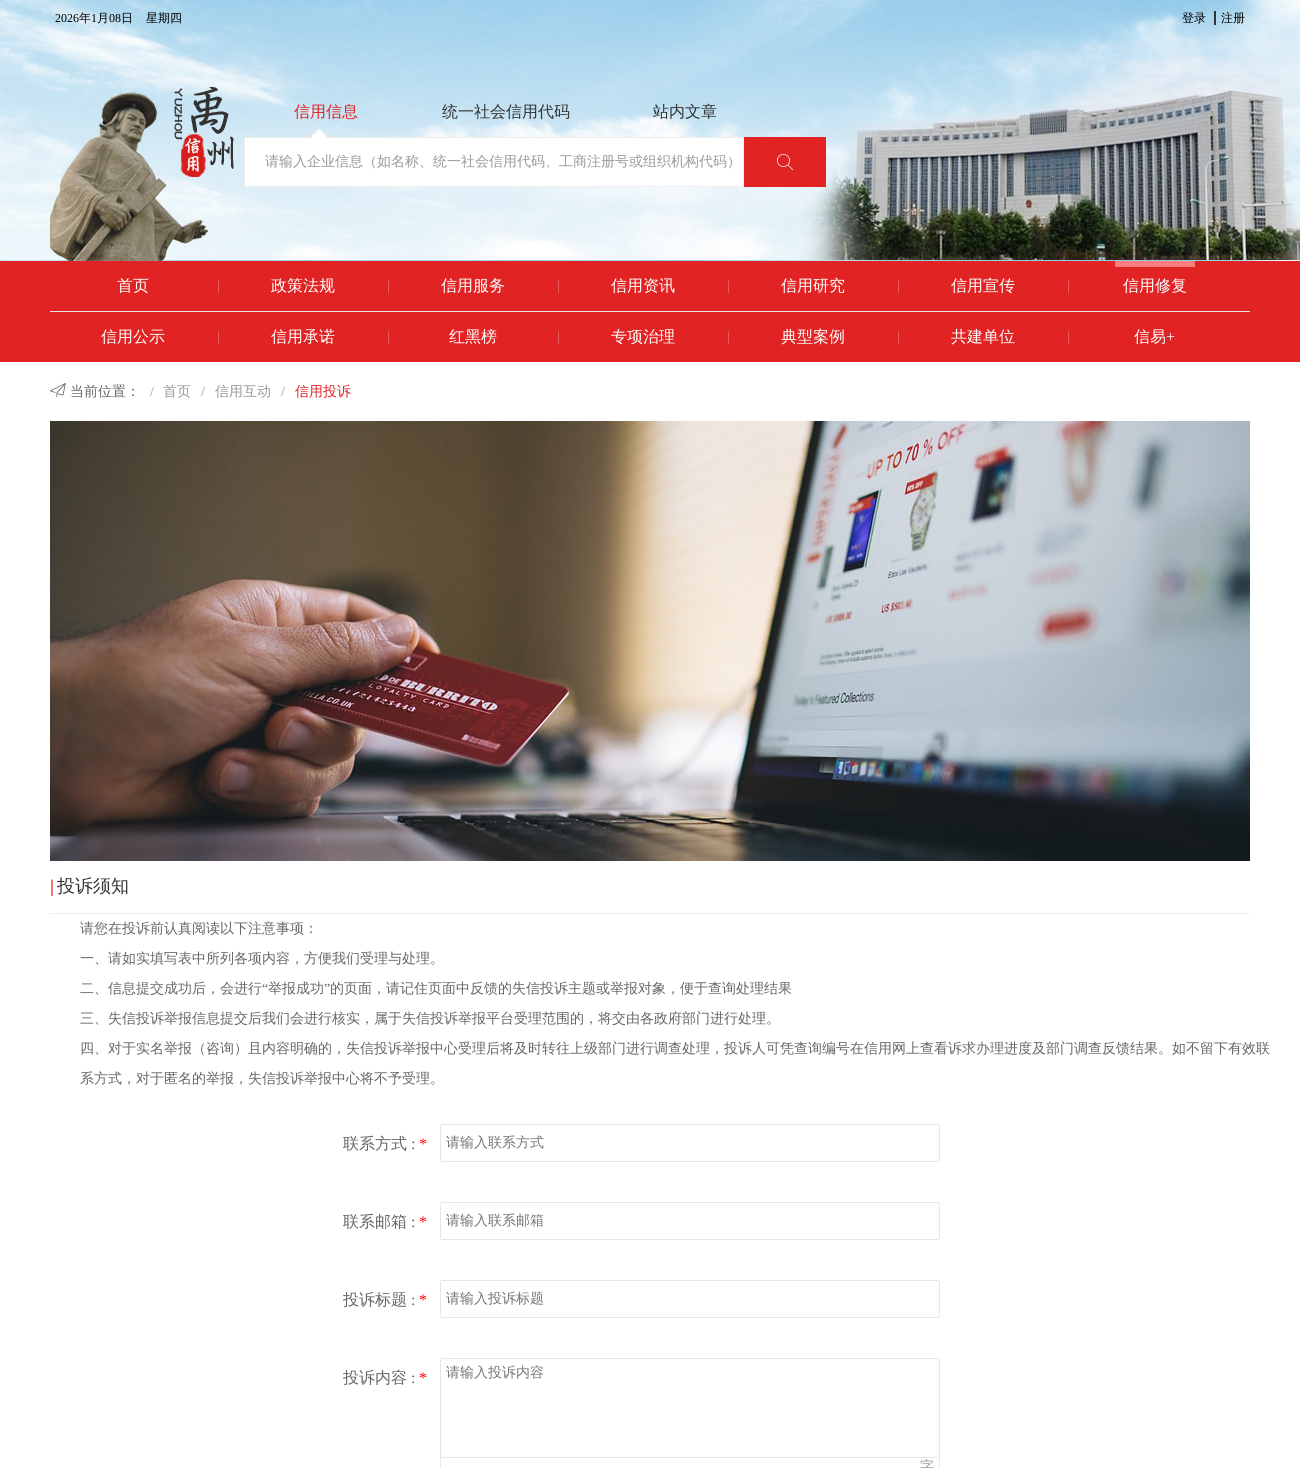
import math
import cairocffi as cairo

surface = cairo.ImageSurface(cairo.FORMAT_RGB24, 1300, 1468)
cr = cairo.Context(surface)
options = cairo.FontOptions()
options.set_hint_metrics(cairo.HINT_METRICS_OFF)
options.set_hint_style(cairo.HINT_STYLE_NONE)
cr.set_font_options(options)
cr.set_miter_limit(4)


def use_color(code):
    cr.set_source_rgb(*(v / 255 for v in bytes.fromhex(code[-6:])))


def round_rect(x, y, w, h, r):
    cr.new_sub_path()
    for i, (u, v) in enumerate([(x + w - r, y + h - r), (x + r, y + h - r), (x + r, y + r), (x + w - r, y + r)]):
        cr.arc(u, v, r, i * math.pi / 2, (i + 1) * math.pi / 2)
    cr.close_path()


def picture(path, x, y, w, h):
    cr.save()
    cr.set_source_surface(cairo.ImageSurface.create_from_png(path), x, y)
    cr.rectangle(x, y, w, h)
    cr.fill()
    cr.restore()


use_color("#ffffff")
cr.paint()
picture("img1.png", 0, 0, 1300, 261)
cr.select_font_face("Liberation Serif")
cr.set_font_size(12)
use_color("#000000")
cr.move_to(55, 22)
cr.show_text("2026")
cr.select_font_face("WenQuanYi Zen Hei Medium")
cr.move_to(79, 22)
cr.show_text("年")
cr.select_font_face("Liberation Serif")
cr.move_to(91, 22)
cr.show_text("1")
cr.select_font_face("WenQuanYi Zen Hei Medium")
cr.move_to(97, 22)
cr.show_text("月")
cr.select_font_face("Liberation Serif")
cr.move_to(109, 22)
cr.show_text("08")
cr.select_font_face("WenQuanYi Zen Hei Medium")
cr.move_to(121, 22)
cr.show_text("日")
cr.move_to(146, 22)
cr.show_text("星期四")
cr.move_to(1182, 22)
cr.show_text("登录")
cr.move_to(1221, 22)
cr.show_text("注册")
use_color("#333333")
cr.rectangle(1214, 11, 2, 14)
cr.fill()
picture("img2.png", 50, 87, 184, 174)
cr.set_font_size(16)
use_color("#e12323")
cr.move_to(294, 117)
cr.show_text("信用信息")
use_color("#333333")
cr.move_to(442, 117)
cr.show_text("统一社会信用代码")
cr.move_to(653, 117)
cr.show_text("站内文章")
use_color("#ffffff")
cr.rectangle(244.5, 137.5, 499, 49)
cr.fill_preserve()
use_color("#ededed")
cr.set_line_width(1)
cr.stroke()
picture("img3.png", 310, 128, 18, 10)
cr.set_font_size(14)
use_color("#999999")
cr.move_to(265, 166)
cr.show_text("请输入企业信息（如名称、统一社会信用代码、工商注册号或组织机构代码）")
use_color("#e12323")
cr.rectangle(744, 137, 82, 50)
cr.fill()
picture("img4.png", 777, 154, 16, 16)
cr.rectangle(0, 261, 1300, 101)
cr.fill()
cr.set_font_size(16)
use_color("#ffffff")
cr.move_to(117, 291)
cr.show_text("首页")
cr.select_font_face("Liberation Serif")
cr.set_font_size(14)
use_color("#ec7272")
cr.move_to(217, 290)
cr.show_text("|")
cr.select_font_face("WenQuanYi Zen Hei Medium")
cr.set_font_size(16)
use_color("#ffffff")
cr.move_to(271, 291)
cr.show_text("政策法规")
cr.select_font_face("Liberation Serif")
cr.set_font_size(14)
use_color("#ec7272")
cr.move_to(387, 290)
cr.show_text("|")
cr.select_font_face("WenQuanYi Zen Hei Medium")
cr.set_font_size(16)
use_color("#ffffff")
cr.move_to(441, 291)
cr.show_text("信用服务")
cr.select_font_face("Liberation Serif")
cr.set_font_size(14)
use_color("#ec7272")
cr.move_to(557, 290)
cr.show_text("|")
cr.select_font_face("WenQuanYi Zen Hei Medium")
cr.set_font_size(16)
use_color("#ffffff")
cr.move_to(611, 291)
cr.show_text("信用资讯")
cr.select_font_face("Liberation Serif")
cr.set_font_size(14)
use_color("#ec7272")
cr.move_to(727, 290)
cr.show_text("|")
cr.select_font_face("WenQuanYi Zen Hei Medium")
cr.set_font_size(16)
use_color("#ffffff")
cr.move_to(781, 291)
cr.show_text("信用研究")
cr.select_font_face("Liberation Serif")
cr.set_font_size(14)
use_color("#ec7272")
cr.move_to(897, 290)
cr.show_text("|")
cr.select_font_face("WenQuanYi Zen Hei Medium")
cr.set_font_size(16)
use_color("#ffffff")
cr.move_to(951, 291)
cr.show_text("信用宣传")
cr.select_font_face("Liberation Serif")
cr.set_font_size(14)
use_color("#ec7272")
cr.move_to(1067, 290)
cr.show_text("|")
use_color("#fb7d7d")
cr.rectangle(1115, 261, 80, 6)
cr.fill()
cr.select_font_face("WenQuanYi Zen Hei Medium")
cr.set_font_size(16)
use_color("#ffffff")
cr.move_to(1123, 291)
cr.show_text("信用修复")
use_color("#e6e6e6")
cr.rectangle(50, 311, 1200, 1)
cr.fill()
use_color("#ffffff")
cr.move_to(101, 342)
cr.show_text("信用公示")
cr.select_font_face("Liberation Serif")
cr.set_font_size(14)
use_color("#ec7272")
cr.move_to(217, 341)
cr.show_text("|")
cr.select_font_face("WenQuanYi Zen Hei Medium")
cr.set_font_size(16)
use_color("#ffffff")
cr.move_to(271, 342)
cr.show_text("信用承诺")
cr.select_font_face("Liberation Serif")
cr.set_font_size(14)
use_color("#ec7272")
cr.move_to(387, 341)
cr.show_text("|")
cr.select_font_face("WenQuanYi Zen Hei Medium")
cr.set_font_size(16)
use_color("#ffffff")
cr.move_to(449, 342)
cr.show_text("红黑榜")
cr.select_font_face("Liberation Serif")
cr.set_font_size(14)
use_color("#ec7272")
cr.move_to(557, 341)
cr.show_text("|")
cr.select_font_face("WenQuanYi Zen Hei Medium")
cr.set_font_size(16)
use_color("#ffffff")
cr.move_to(611, 342)
cr.show_text("专项治理")
cr.select_font_face("Liberation Serif")
cr.set_font_size(14)
use_color("#ec7272")
cr.move_to(727, 341)
cr.show_text("|")
cr.select_font_face("WenQuanYi Zen Hei Medium")
cr.set_font_size(16)
use_color("#ffffff")
cr.move_to(781, 342)
cr.show_text("典型案例")
cr.select_font_face("Liberation Serif")
cr.set_font_size(14)
use_color("#ec7272")
cr.move_to(897, 341)
cr.show_text("|")
cr.select_font_face("WenQuanYi Zen Hei Medium")
cr.set_font_size(16)
use_color("#ffffff")
cr.move_to(951, 342)
cr.show_text("共建单位")
cr.select_font_face("Liberation Serif")
cr.set_font_size(14)
use_color("#ec7272")
cr.move_to(1067, 341)
cr.show_text("|")
cr.select_font_face("WenQuanYi Zen Hei Medium")
cr.set_font_size(16)
use_color("#ffffff")
cr.move_to(1134, 342)
cr.show_text("信易")
cr.select_font_face("Liberation Serif")
cr.move_to(1166, 342)
cr.show_text("+")
picture("img5.png", 50, 383, 16, 14)
cr.select_font_face("WenQuanYi Zen Hei Medium")
cr.set_font_size(14)
use_color("#666666")
cr.move_to(70, 396)
cr.show_text("当前位置：")
cr.select_font_face("Liberation Serif")
use_color("#999999")
cr.move_to(150, 396)
cr.show_text("/")
cr.select_font_face("WenQuanYi Zen Hei Medium")
cr.move_to(163, 396)
cr.show_text("首页")
cr.select_font_face("Liberation Serif")
cr.move_to(201, 396)
cr.show_text("/")
cr.select_font_face("WenQuanYi Zen Hei Medium")
cr.move_to(215, 396)
cr.show_text("信用互动")
cr.select_font_face("Liberation Serif")
cr.move_to(281, 396)
cr.show_text("/")
cr.select_font_face("WenQuanYi Zen Hei Medium")
use_color("#e12323")
cr.move_to(295, 396)
cr.show_text("信用投诉")
picture("img6.png", 50, 421, 1200, 440)
use_color("#ededed")
cr.rectangle(50, 913, 1200, 1)
cr.fill()
cr.select_font_face("Liberation Serif", cairo.FONT_SLANT_NORMAL, cairo.FONT_WEIGHT_BOLD)
cr.set_font_size(18)
use_color("#e12323")
cr.move_to(50, 892)
cr.show_text("|")
cr.select_font_face("WenQuanYi Zen Hei Medium")
use_color("#333333")
cr.move_to(57, 892)
cr.show_text("投诉须知")
cr.set_font_size(14)
use_color("#666666")
cr.move_to(80, 933)
cr.show_text("请您在投诉前认真阅读以下注意事项：")
cr.move_to(80, 963)
cr.show_text("一、请如实填写表中所列各项内容，方便我们受理与处理。")
cr.move_to(80, 993)
cr.show_text("二、信息提交成功后，会进行")
cr.select_font_face("Liberation Serif")
cr.move_to(262, 993)
cr.show_text("“")
cr.select_font_face("WenQuanYi Zen Hei Medium")
cr.move_to(268, 993)
cr.show_text("举报成功")
cr.select_font_face("Liberation Serif")
cr.move_to(324, 993)
cr.show_text("”")
cr.select_font_face("WenQuanYi Zen Hei Medium")
cr.move_to(330, 993)
cr.show_text("的页面，请记住页面中反馈的失信投诉主题或举报对象，便于查询处理结果")
cr.move_to(80, 1023)
cr.show_text("三、失信投诉举报信息提交后我们会进行核实，属于失信投诉举报平台受理范围的，将交由各政府部门进行处理。")
cr.move_to(80, 1053)
cr.show_text("四、对于实名举报（咨询）且内容明确的，失信投诉举报中心受理后将及时转往上级部门进行调查处理，投诉人可凭查询编号在信用网上查看诉求办理进度及部门调查反馈结果。如不留下有效联")
cr.move_to(80, 1083)
cr.show_text("系方式，对于匿名的举报，失信投诉举报中心将不予受理。")
cr.set_font_size(16)
cr.move_to(343, 1149)
cr.show_text("联系方式")
cr.select_font_face("Liberation Serif")
cr.move_to(411, 1149)
cr.show_text(":")
use_color("#ff0000")
cr.move_to(419, 1149)
cr.show_text("*")
round_rect(440.5, 1124.5, 499, 37, 1.5)
use_color("#e6e6e6")
cr.stroke()
cr.select_font_face("WenQuanYi Zen Hei Medium")
cr.set_font_size(14)
use_color("#757575")
cr.move_to(446, 1147)
cr.show_text("请输入联系方式")
cr.set_font_size(16)
use_color("#666666")
cr.move_to(343, 1227)
cr.show_text("联系邮箱")
cr.select_font_face("Liberation Serif")
cr.move_to(411, 1227)
cr.show_text(":")
use_color("#ff0000")
cr.move_to(419, 1227)
cr.show_text("*")
round_rect(440.5, 1202.5, 499, 37, 1.5)
use_color("#e6e6e6")
cr.stroke()
cr.select_font_face("WenQuanYi Zen Hei Medium")
cr.set_font_size(14)
use_color("#757575")
cr.move_to(446, 1225)
cr.show_text("请输入联系邮箱")
cr.set_font_size(16)
use_color("#666666")
cr.move_to(343, 1305)
cr.show_text("投诉标题")
cr.select_font_face("Liberation Serif")
cr.move_to(411, 1305)
cr.show_text(":")
use_color("#ff0000")
cr.move_to(419, 1305)
cr.show_text("*")
round_rect(440.5, 1280.5, 499, 37, 1.5)
use_color("#e6e6e6")
cr.stroke()
cr.select_font_face("WenQuanYi Zen Hei Medium")
cr.set_font_size(14)
use_color("#757575")
cr.move_to(446, 1303)
cr.show_text("请输入投诉标题")
cr.set_font_size(16)
use_color("#666666")
cr.move_to(343, 1383)
cr.show_text("投诉内容")
cr.select_font_face("Liberation Serif")
cr.move_to(411, 1383)
cr.show_text(":")
use_color("#ff0000")
cr.move_to(419, 1383)
cr.show_text("*")
use_color("#e6e6e6")
cr.rectangle(939, 1455, 1, 13)
cr.fill()
cr.rectangle(440, 1455, 1, 13)
cr.fill()
use_color("#ffffff")
round_rect(440.5, 1358.5, 499, 99, 1.5)
cr.fill_preserve()
use_color("#e6e6e6")
cr.stroke()
cr.select_font_face("WenQuanYi Zen Hei Medium")
cr.set_font_size(14)
use_color("#757575")
cr.move_to(446, 1377)
cr.show_text("请输入投诉内容")
use_color("#999999")
cr.move_to(920, 1471)
cr.show_text("字")
surface.write_to_png("result.png")
